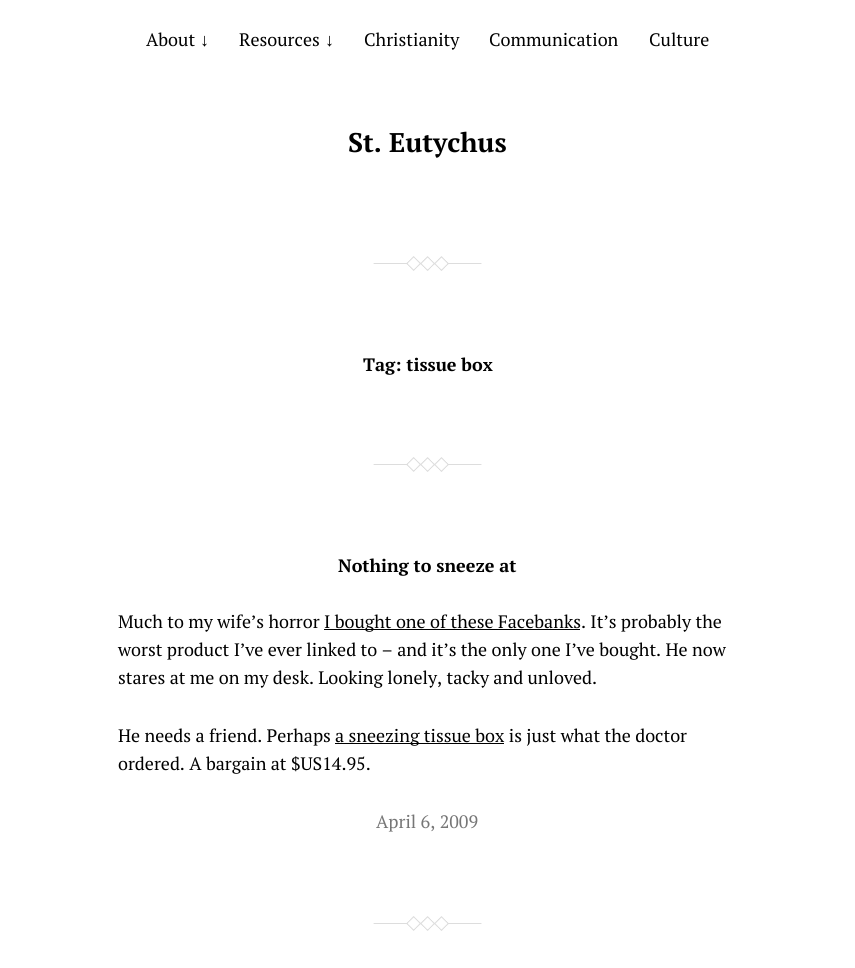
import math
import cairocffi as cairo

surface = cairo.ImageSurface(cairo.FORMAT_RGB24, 855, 968)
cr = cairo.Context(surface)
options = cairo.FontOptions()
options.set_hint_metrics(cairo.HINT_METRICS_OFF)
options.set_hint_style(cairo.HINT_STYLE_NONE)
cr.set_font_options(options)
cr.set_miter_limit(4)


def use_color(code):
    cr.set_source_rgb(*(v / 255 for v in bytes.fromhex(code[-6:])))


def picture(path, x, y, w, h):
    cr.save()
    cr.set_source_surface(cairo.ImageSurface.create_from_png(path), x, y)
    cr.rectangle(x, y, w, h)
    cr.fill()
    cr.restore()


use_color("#ffffff")
cr.paint()
cr.select_font_face("PT Serif")
cr.set_font_size(18)
use_color("#000000")
cr.move_to(146, 46)
cr.show_text("About")
cr.select_font_face("Liberation Sans")
cr.move_to(200, 46)
cr.show_text("↓")
cr.select_font_face("PT Serif")
cr.move_to(239, 46)
cr.show_text("Resources")
cr.select_font_face("Liberation Sans")
cr.move_to(325, 46)
cr.show_text("↓")
cr.select_font_face("PT Serif")
cr.move_to(364, 46)
cr.show_text("Christianity")
cr.move_to(489, 46)
cr.show_text("Communication")
cr.move_to(649, 46)
cr.show_text("Culture")
cr.select_font_face("PT Serif", cairo.FONT_SLANT_NORMAL, cairo.FONT_WEIGHT_BOLD)
cr.set_font_size(27)
cr.move_to(348, 152)
cr.show_text("St. Eutychus")
picture("img1.png", 373, 256, 109, 15)
cr.set_font_size(18)
cr.move_to(363, 371)
cr.show_text("Tag: tissue box")
picture("img2.png", 373, 457, 109, 15)
cr.move_to(338, 572)
cr.show_text("Nothing to sneeze at")
cr.select_font_face("PT Serif")
cr.move_to(118, 628)
cr.show_text("Much to my wife’s horror")
cr.rectangle(324, 629, 256, 1)
cr.fill()
cr.move_to(324, 628)
cr.show_text("I bought one of these Facebanks. It’s probably the")
cr.move_to(118, 656)
cr.show_text("worst product I’ve ever linked to – and it’s the only one I’ve bought. He now")
cr.move_to(118, 684)
cr.show_text("stares at me on my desk. Looking lonely, tacky and unloved.")
cr.move_to(118, 742)
cr.show_text("He needs a friend. Perhaps")
cr.rectangle(335, 743, 169, 1)
cr.fill()
cr.move_to(335, 742)
cr.show_text("a sneezing tissue box is just what the doctor")
cr.move_to(118, 770)
cr.show_text("ordered. A bargain at $US14.95.")
use_color("#767676")
cr.move_to(376, 828)
cr.show_text("April 6, 2009")
picture("img2.png", 373, 916, 109, 15)
surface.write_to_png("result.png")
